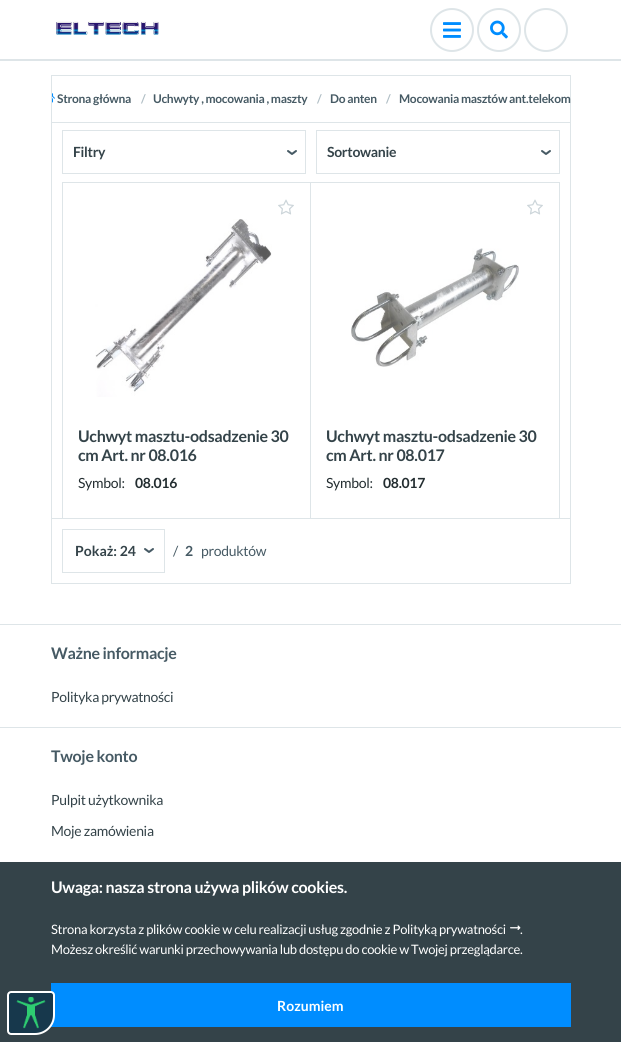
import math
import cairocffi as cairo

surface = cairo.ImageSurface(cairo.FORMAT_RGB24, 621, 1042)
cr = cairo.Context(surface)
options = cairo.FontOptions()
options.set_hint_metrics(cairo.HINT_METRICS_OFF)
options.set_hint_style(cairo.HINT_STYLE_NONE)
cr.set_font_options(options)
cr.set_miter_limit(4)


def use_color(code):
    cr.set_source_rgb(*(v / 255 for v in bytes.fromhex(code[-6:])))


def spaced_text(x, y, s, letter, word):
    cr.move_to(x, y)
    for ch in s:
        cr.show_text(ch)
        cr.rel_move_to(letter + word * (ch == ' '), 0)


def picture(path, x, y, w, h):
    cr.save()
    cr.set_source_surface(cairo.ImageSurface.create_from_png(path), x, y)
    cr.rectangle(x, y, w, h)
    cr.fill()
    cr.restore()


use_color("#ffffff")
cr.paint()
picture("img1.png", 56, 21, 103, 14)
picture("img2.png", 443, 22, 18, 16)
cr.arc(452, 30, 21, 0, 2 * math.pi)
use_color("#dee5e8")
cr.stroke()
picture("img3.png", 490, 20, 18, 19)
cr.arc(499, 30, 21, 0, 2 * math.pi)
cr.stroke()
cr.arc(546, 30, 21, 0, 2 * math.pi)
cr.stroke()
cr.rectangle(0, 59, 621, 2)
cr.fill()
cr.rectangle(51.5, 75.5, 519, 508)
cr.set_line_width(1)
cr.stroke()
cr.rectangle(52, 122, 518, 1)
cr.fill()
picture("img4.png", 52, 93, 3, 10)
cr.select_font_face("Lato", cairo.FONT_SLANT_NORMAL, cairo.FONT_WEIGHT_BOLD)
cr.set_font_size(12)
use_color("#465a64")
spaced_text(57, 103, "Strona główna", -0.3, 0)
use_color("#b0bec5")
spaced_text(141, 103, "/", -0.3, 0)
use_color("#465a64")
spaced_text(153, 103, "Uchwyty , mocowania , maszty", -0.3, 0)
use_color("#b0bec5")
spaced_text(317, 103, "/", -0.3, 0)
use_color("#465a64")
spaced_text(330, 103, "Do anten", -0.3, 0)
use_color("#b0bec5")
spaced_text(386, 103, "/", -0.3, 0)
use_color("#465a64")
spaced_text(399, 103, "Mocowania masztów ant.telekom", -0.3, 0)
picture("img5.png", 287, 150, 10, 5)
cr.rectangle(62.5, 130.5, 243, 43)
use_color("#dee5e8")
cr.stroke()
cr.set_font_size(14)
use_color("#344349")
spaced_text(73, 157, "Filtry", -0.3, 0)
picture("img5.png", 541, 150, 10, 5)
cr.rectangle(316.5, 130.5, 243, 43)
use_color("#dee5e8")
cr.stroke()
use_color("#344349")
spaced_text(327, 157, "Sortowanie", -0.3, 0)
use_color("#dee5e8")
cr.rectangle(52, 518, 518, 1)
cr.fill()
cr.rectangle(62.5, 182.5, 248, 336)
cr.stroke()
picture("img6.png", 278, 199, 16, 16)
picture("img7.png", 95, 219, 177, 178)
cr.set_font_size(16)
use_color("#344349")
spaced_text(78, 442, "Uchwyt masztu-odsadzenie 30", -0.3, 0)
spaced_text(78, 461, "cm Art. nr 08.016", -0.3, 0)
cr.select_font_face("Lato")
cr.set_font_size(14)
use_color("#232d30")
spaced_text(78, 488, "Symbol:", -0.3, 0)
cr.select_font_face("Lato", cairo.FONT_SLANT_NORMAL, cairo.FONT_WEIGHT_BOLD)
spaced_text(135, 488, "08.016", -0.3, 0)
cr.rectangle(310.5, 182.5, 249, 336)
use_color("#dee5e8")
cr.stroke()
picture("img6.png", 527, 199, 16, 16)
picture("img8.png", 351, 248, 168, 119)
cr.set_font_size(16)
use_color("#344349")
spaced_text(326, 442, "Uchwyt masztu-odsadzenie 30", -0.3, 0)
spaced_text(326, 461, "cm Art. nr 08.017", -0.3, 0)
cr.select_font_face("Lato")
cr.set_font_size(14)
use_color("#232d30")
spaced_text(326, 488, "Symbol:", -0.3, 0)
cr.select_font_face("Lato", cairo.FONT_SLANT_NORMAL, cairo.FONT_WEIGHT_BOLD)
spaced_text(383, 488, "08.017", -0.3, 0)
picture("img5.png", 144, 548, 10, 5)
cr.rectangle(62.5, 529.5, 102, 43)
use_color("#dee5e8")
cr.stroke()
use_color("#344349")
cr.move_to(75, 556)
cr.show_text("Pokaż: 24")
cr.select_font_face("Lato")
use_color("#465a64")
spaced_text(173, 556, "/", -0.3, 0)
cr.select_font_face("Lato", cairo.FONT_SLANT_NORMAL, cairo.FONT_WEIGHT_BOLD)
spaced_text(185, 556, "2", -0.3, 0)
cr.select_font_face("Lato")
spaced_text(201, 556, "produktów", -0.3, 0)
use_color("#dee5e8")
cr.rectangle(0, 624, 621, 1)
cr.fill()
cr.select_font_face("Lato", cairo.FONT_SLANT_NORMAL, cairo.FONT_WEIGHT_BOLD)
cr.set_font_size(16)
use_color("#465a64")
spaced_text(51, 659, "Ważne informacje", -0.3, 0)
cr.select_font_face("Lato")
cr.set_font_size(14)
use_color("#344349")
spaced_text(51, 702, "Polityka prywatności", -0.3, 0)
use_color("#dee5e8")
cr.rectangle(0, 727, 621, 1)
cr.fill()
cr.select_font_face("Lato", cairo.FONT_SLANT_NORMAL, cairo.FONT_WEIGHT_BOLD)
cr.set_font_size(16)
use_color("#465a64")
spaced_text(51, 762, "Twoje konto", -0.3, 0)
cr.select_font_face("Lato")
cr.set_font_size(14)
use_color("#344349")
spaced_text(51, 805, "Pulpit użytkownika", -0.3, 0)
spaced_text(51, 836, "Moje zamówienia", -0.3, 0)
cr.rectangle(0, 862, 621, 180)
cr.fill()
use_color("#008dff")
cr.rectangle(51, 983, 520, 44)
cr.fill()
use_color("#17384c")
cr.new_path()
cr.move_to(11, 992)
cr.line_to(51, 992)
cr.curve_to(52.5, 992, 54, 993.5, 54, 995)
cr.line_to(54, 1015)
cr.curve_to(54, 1025.5, 45.5, 1034, 35, 1034)
cr.line_to(11, 1034)
cr.curve_to(9.5, 1034, 8, 1032.5, 8, 1031)
cr.line_to(8, 995)
cr.curve_to(8, 993.5, 9.5, 992, 11, 992)
cr.close_path()
cr.fill_preserve()
use_color("#ffffff")
cr.set_line_width(2)
cr.stroke()
picture("img9.png", 16, 997, 30, 32)
cr.select_font_face("Lato", cairo.FONT_SLANT_NORMAL, cairo.FONT_WEIGHT_BOLD)
cr.set_font_size(16)
spaced_text(51, 893, "Uwaga: nasza strona używa plików cookies.", -0.3, 0)
cr.select_font_face("Lato")
cr.set_font_size(13)
spaced_text(51, 934, "Strona korzysta z plików cookie w celu realizacji usług zgodnie z Polityką prywatności", -0.3, 0)
picture("img10.png", 510, 925, 11, 5)
spaced_text(520, 934, ".", -0.3, 0)
spaced_text(51, 954, "Możesz określić warunki przechowywania lub dostępu do cookie w Twojej przeglądarce.", -0.3, 0)
cr.select_font_face("Lato", cairo.FONT_SLANT_NORMAL, cairo.FONT_WEIGHT_BOLD)
cr.set_font_size(14)
cr.move_to(277, 1011)
cr.show_text("Rozumiem")
surface.write_to_png("result.png")
